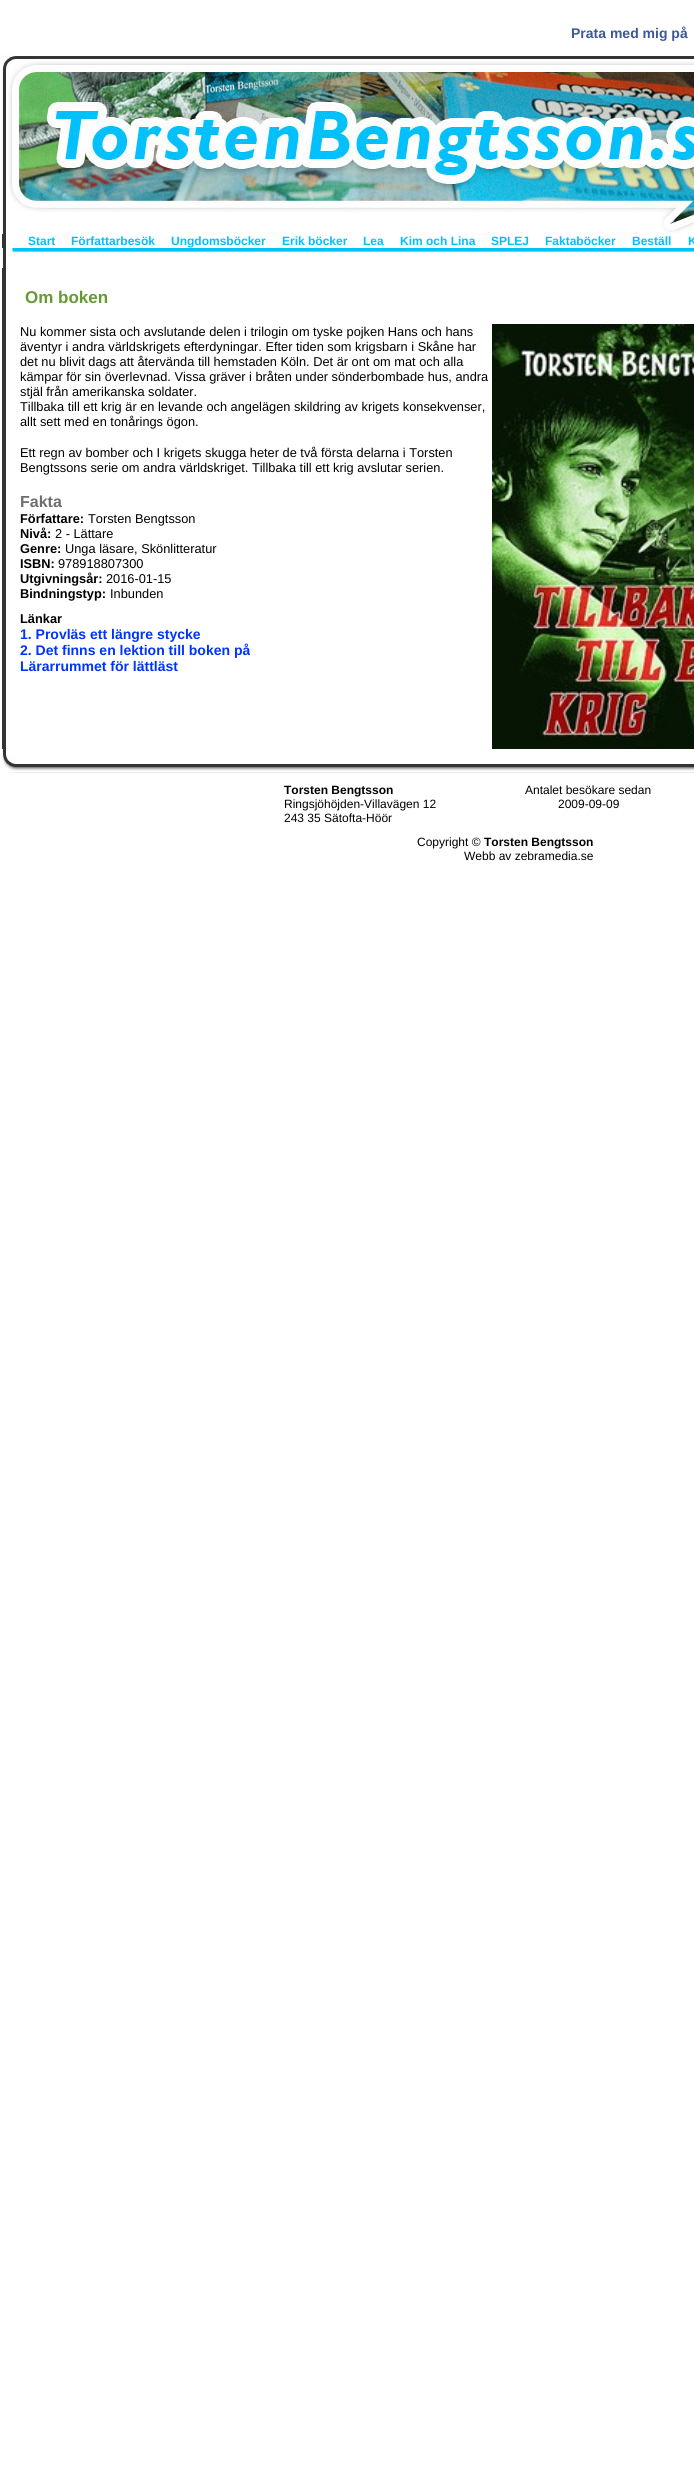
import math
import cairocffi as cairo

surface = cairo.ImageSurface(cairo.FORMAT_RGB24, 694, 2471)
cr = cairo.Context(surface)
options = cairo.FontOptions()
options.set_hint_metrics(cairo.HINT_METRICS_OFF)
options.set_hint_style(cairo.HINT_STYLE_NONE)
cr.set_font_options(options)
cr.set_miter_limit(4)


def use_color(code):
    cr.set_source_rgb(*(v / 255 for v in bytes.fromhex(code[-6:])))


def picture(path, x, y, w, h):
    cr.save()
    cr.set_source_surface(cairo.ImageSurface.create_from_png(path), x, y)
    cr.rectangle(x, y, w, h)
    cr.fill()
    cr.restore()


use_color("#ffffff")
cr.paint()
cr.select_font_face("Liberation Sans", cairo.FONT_SLANT_NORMAL, cairo.FONT_WEIGHT_BOLD)
cr.set_font_size(14)
use_color("#3b5998")
cr.move_to(571, 38)
cr.show_text("Prata med mig på")
picture("img1.png", 1, 53, 693, 181)
use_color("#343434")
cr.rectangle(2, 234, 4, 14)
cr.fill()
cr.set_font_size(12)
use_color("#00c0ff")
cr.move_to(28, 245)
cr.show_text("Start")
cr.move_to(71, 245)
cr.show_text("Författarbesök")
cr.move_to(171, 245)
cr.show_text("Ungdomsböcker")
cr.move_to(282, 245)
cr.show_text("Erik böcker")
cr.move_to(363, 245)
cr.show_text("Lea")
cr.move_to(400, 245)
cr.show_text("Kim och Lina")
cr.move_to(491, 245)
cr.show_text("SPLEJ")
cr.move_to(545, 245)
cr.show_text("Faktaböcker")
cr.move_to(632, 245)
cr.show_text("Beställ")
cr.move_to(688, 245)
cr.show_text("K")
picture("img2.png", 2, 248, 692, 20)
use_color("#343434")
cr.rectangle(2, 268, 4, 481)
cr.fill()
cr.set_font_size(17)
use_color("#669933")
cr.move_to(25, 303)
cr.show_text("Om boken")
cr.select_font_face("Liberation Sans")
cr.set_font_size(12.8)
use_color("#000000")
cr.move_to(20, 336)
cr.show_text("Nu kommer sista och avslutande delen i trilogin om tyske pojken Hans och hans")
picture("img3.png", 492, 324, 202, 425)
cr.move_to(20, 351)
cr.show_text("äventyr i andra världskrigets efterdyningar. Efter tiden som krigsbarn i Skåne har")
cr.move_to(20, 366)
cr.show_text("det nu blivit dags att återvända till hemstaden Köln. Det är ont om mat och alla")
cr.move_to(20, 381)
cr.show_text("kämpar för sin överlevnad. Vissa gräver i bråten under sönderbombade hus, andra")
cr.move_to(20, 396)
cr.show_text("stjäl från amerikanska soldater.")
cr.move_to(20, 411)
cr.show_text("Tillbaka till ett krig är en levande och angelägen skildring av krigets konsekvenser,")
cr.move_to(20, 426)
cr.show_text("allt sett med en tonårings ögon.")
cr.move_to(20, 457)
cr.show_text("Ett regn av bomber och I krigets skugga heter de två första delarna i Torsten")
cr.move_to(20, 472)
cr.show_text("Bengtssons serie om andra världskriget. Tillbaka till ett krig avslutar serien.")
cr.select_font_face("Liberation Sans", cairo.FONT_SLANT_NORMAL, cairo.FONT_WEIGHT_BOLD)
cr.set_font_size(16)
use_color("#6e6e6e")
cr.move_to(20, 507)
cr.show_text("Fakta")
cr.set_font_size(12.8)
use_color("#000000")
cr.move_to(20, 523)
cr.show_text("Författare:")
cr.select_font_face("Liberation Sans")
cr.move_to(88, 523)
cr.show_text("Torsten Bengtsson")
cr.select_font_face("Liberation Sans", cairo.FONT_SLANT_NORMAL, cairo.FONT_WEIGHT_BOLD)
cr.move_to(20, 538)
cr.show_text("Nivå:")
cr.select_font_face("Liberation Sans")
cr.move_to(55, 538)
cr.show_text("2 - Lättare")
cr.select_font_face("Liberation Sans", cairo.FONT_SLANT_NORMAL, cairo.FONT_WEIGHT_BOLD)
cr.move_to(20, 553)
cr.show_text("Genre:")
cr.select_font_face("Liberation Sans")
cr.move_to(65, 553)
cr.show_text("Unga läsare, Skönlitteratur")
cr.select_font_face("Liberation Sans", cairo.FONT_SLANT_NORMAL, cairo.FONT_WEIGHT_BOLD)
cr.move_to(20, 568)
cr.show_text("ISBN:")
cr.select_font_face("Liberation Sans")
cr.move_to(58, 568)
cr.show_text("978918807300")
cr.select_font_face("Liberation Sans", cairo.FONT_SLANT_NORMAL, cairo.FONT_WEIGHT_BOLD)
cr.move_to(20, 583)
cr.show_text("Utgivningsår:")
cr.select_font_face("Liberation Sans")
cr.move_to(106, 583)
cr.show_text("2016-01-15")
cr.select_font_face("Liberation Sans", cairo.FONT_SLANT_NORMAL, cairo.FONT_WEIGHT_BOLD)
cr.move_to(20, 598)
cr.show_text("Bindningstyp:")
cr.select_font_face("Liberation Sans")
cr.move_to(110, 598)
cr.show_text("Inbunden")
cr.select_font_face("Liberation Sans", cairo.FONT_SLANT_NORMAL, cairo.FONT_WEIGHT_BOLD)
cr.move_to(20, 623)
cr.show_text("Länkar")
cr.set_font_size(14)
use_color("#0033ff")
cr.move_to(20, 639)
cr.show_text("1. Provläs ett längre stycke")
cr.move_to(20, 655)
cr.show_text("2. Det finns en lektion till boken på")
cr.move_to(20, 671)
cr.show_text("Lärarrummet för lättläst")
picture("img4.png", 1, 749, 693, 24)
cr.set_font_size(12)
use_color("#000000")
cr.move_to(284, 794)
cr.show_text("Torsten Bengtsson")
cr.select_font_face("Liberation Sans")
cr.move_to(284, 808)
cr.show_text("Ringsjöhöjden-Villavägen 12")
cr.move_to(284, 822)
cr.show_text("243 35 Sätofta-Höör")
cr.move_to(525, 794)
cr.show_text("Antalet besökare sedan")
cr.move_to(558, 808)
cr.show_text("2009-09-09")
cr.move_to(417, 846)
cr.show_text("Copyright ©")
cr.select_font_face("Liberation Sans", cairo.FONT_SLANT_NORMAL, cairo.FONT_WEIGHT_BOLD)
cr.move_to(484, 846)
cr.show_text("Torsten Bengtsson")
cr.select_font_face("Liberation Sans")
cr.move_to(464, 860)
cr.show_text("Webb av zebramedia.se")
surface.write_to_png("result.png")
